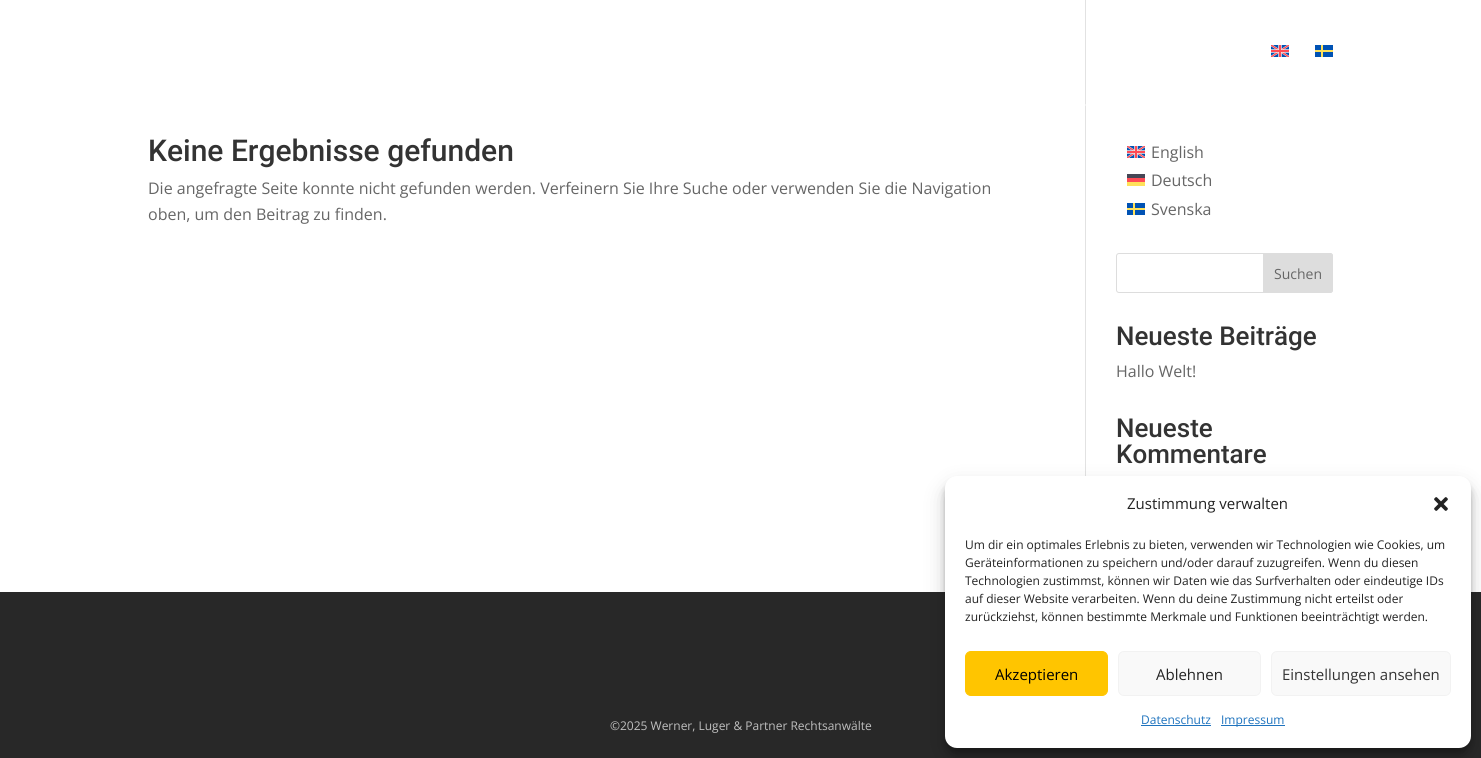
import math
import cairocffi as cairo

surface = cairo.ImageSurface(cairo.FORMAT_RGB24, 1481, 758)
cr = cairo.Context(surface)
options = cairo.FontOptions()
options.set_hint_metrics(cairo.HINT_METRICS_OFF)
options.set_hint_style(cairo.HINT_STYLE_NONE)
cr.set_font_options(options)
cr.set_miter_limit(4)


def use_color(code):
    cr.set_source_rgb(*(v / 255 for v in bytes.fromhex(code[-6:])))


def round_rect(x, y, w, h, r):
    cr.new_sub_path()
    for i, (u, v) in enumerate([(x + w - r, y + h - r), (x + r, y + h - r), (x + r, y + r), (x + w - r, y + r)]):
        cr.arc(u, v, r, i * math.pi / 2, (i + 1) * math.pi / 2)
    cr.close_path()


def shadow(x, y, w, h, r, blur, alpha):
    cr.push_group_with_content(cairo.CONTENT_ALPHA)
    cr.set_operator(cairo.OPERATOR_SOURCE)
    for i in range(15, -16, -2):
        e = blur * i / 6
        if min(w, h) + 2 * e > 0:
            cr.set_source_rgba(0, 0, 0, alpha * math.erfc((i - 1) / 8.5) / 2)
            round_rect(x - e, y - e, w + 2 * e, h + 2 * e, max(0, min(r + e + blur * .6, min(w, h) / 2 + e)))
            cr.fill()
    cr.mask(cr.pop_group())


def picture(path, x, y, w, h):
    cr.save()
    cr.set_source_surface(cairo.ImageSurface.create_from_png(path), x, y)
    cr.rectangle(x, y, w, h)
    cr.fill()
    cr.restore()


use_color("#ffffff")
cr.paint()
picture("img1.png", 1271, 45, 18, 12)
use_color("#0052b4")
cr.rectangle(1315, 45, 18, 12)
cr.fill()
use_color("#ffe15a")
cr.rectangle(1321, 45, 2, 12)
cr.fill()
cr.rectangle(1315, 50, 18, 2)
cr.fill()
use_color("#e2e2e2")
cr.rectangle(1085, 0, 1, 476)
cr.fill()
use_color("#eeeeee")
cr.rectangle(1085, 104, 1, 2)
cr.fill()
cr.select_font_face("Roboto Medium")
cr.set_font_size(30)
use_color("#333333")
cr.move_to(148, 161)
cr.show_text("Keine Ergebnisse gefunden")
cr.select_font_face("Open Sans")
cr.set_font_size(16)
use_color("#666666")
cr.move_to(148, 194)
cr.show_text("Die angefragte Seite konnte nicht gefunden werden. Verfeinern Sie Ihre Suche oder verwenden Sie die Navigation")
cr.move_to(148, 220)
cr.show_text("oben, um den Beitrag zu finden.")
picture("img1.png", 1127, 146, 18, 12)
cr.move_to(1151, 158)
cr.show_text("English")
use_color("#464655")
cr.rectangle(1127, 174, 18, 4)
cr.fill()
use_color("#666666")
cr.move_to(1151, 186)
cr.show_text("Deutsch")
use_color("#ff4b55")
cr.rectangle(1127, 178, 18, 4)
cr.fill()
use_color("#ffe15a")
cr.rectangle(1127, 182, 18, 4)
cr.fill()
use_color("#0052b4")
cr.rectangle(1127, 203, 18, 12)
cr.fill()
use_color("#666666")
cr.move_to(1151, 215)
cr.show_text("Svenska")
use_color("#ffe15a")
cr.rectangle(1133, 203, 2, 12)
cr.fill()
cr.rectangle(1127, 208, 18, 2)
cr.fill()
round_rect(1116.5, 253.5, 216, 39, 2.5)
use_color("#dddddd")
cr.set_line_width(1)
cr.stroke()
cr.new_path()
cr.move_to(1263.5, 253.5)
cr.line_to(1330, 253.5)
cr.curve_to(1331.5, 253.5, 1332.5, 254.5, 1332.5, 256)
cr.line_to(1332.5, 290)
cr.curve_to(1332.5, 291.5, 1331.5, 292.5, 1330, 292.5)
cr.line_to(1263.5, 292.5)
cr.close_path()
cr.fill_preserve()
cr.stroke()
cr.set_font_size(14)
use_color("#666666")
cr.move_to(1274, 279)
cr.show_text("Suchen")
cr.select_font_face("Roboto Medium")
cr.set_font_size(26)
use_color("#333333")
cr.move_to(1116, 345)
cr.show_text("Neueste Beiträge")
cr.select_font_face("Open Sans")
cr.set_font_size(16)
use_color("#666666")
cr.move_to(1116, 377)
cr.show_text("Hallo Welt!")
cr.select_font_face("Roboto Medium")
cr.set_font_size(26)
use_color("#333333")
cr.move_to(1116, 437)
cr.show_text("Neueste")
cr.move_to(1116, 463)
cr.show_text("Kommentare")
use_color("#282828")
cr.rectangle(0, 592, 1481, 166)
cr.fill()
cr.select_font_face("Open Sans")
cr.set_font_size(12)
use_color("#bfbfbf")
cr.move_to(610, 730)
cr.show_text("©2025 Werner, Luger & Partner Rechtsanwälte")
use_color("#000000")
shadow(945, 482, 526, 272, 12, 3, 0.23)
shadow(945, 486, 526, 272, 12, 10, 0.19)
use_color("#ffffff")
round_rect(945, 476, 526, 272, 12)
cr.fill()
cr.set_font_size(15)
use_color("#222222")
cr.move_to(1127, 509)
cr.show_text("Zustimmung verwalten")
picture("img2.png", 1434, 497, 14, 14)
cr.set_font_size(12)
cr.move_to(965, 549)
cr.show_text("Um dir ein optimales Erlebnis zu bieten, verwenden wir Technologien wie Cookies, um")
cr.move_to(965, 567)
cr.show_text("Geräteinformationen zu speichern und/oder darauf zuzugreifen. Wenn du diesen")
cr.move_to(965, 585)
cr.show_text("Technologien zustimmst, können wir Daten wie das Surfverhalten oder eindeutige IDs")
cr.move_to(965, 603)
cr.show_text("auf dieser Website verarbeiten. Wenn du deine Zustimmung nicht erteilst oder")
cr.move_to(965, 621)
cr.show_text("zurückziehst, können bestimmte Merkmale und Funktionen beeinträchtigt werden.")
use_color("#ffc500")
round_rect(965.5, 651.5, 142, 44, 5.5)
cr.fill_preserve()
cr.stroke()
cr.set_font_size(15)
use_color("#000000")
cr.move_to(995, 680)
cr.show_text("Akzeptieren")
use_color("#f9f9f9")
round_rect(1118.5, 651.5, 142, 44, 5.5)
cr.fill_preserve()
use_color("#f2f2f2")
cr.stroke()
use_color("#222222")
cr.move_to(1156, 680)
cr.show_text("Ablehnen")
use_color("#f9f9f9")
round_rect(1271.5, 651.5, 179, 44, 5.5)
cr.fill_preserve()
use_color("#f2f2f2")
cr.stroke()
use_color("#333333")
cr.move_to(1282, 680)
cr.show_text("Einstellungen ansehen")
cr.set_font_size(12)
use_color("#1e73be")
cr.move_to(1141, 724)
cr.show_text("Datenschutz")
cr.rectangle(1141, 725, 70, 1)
cr.fill()
cr.rectangle(1221, 725, 64, 1)
cr.fill()
cr.move_to(1221, 724)
cr.show_text("Impressum")
surface.write_to_png("result.png")
